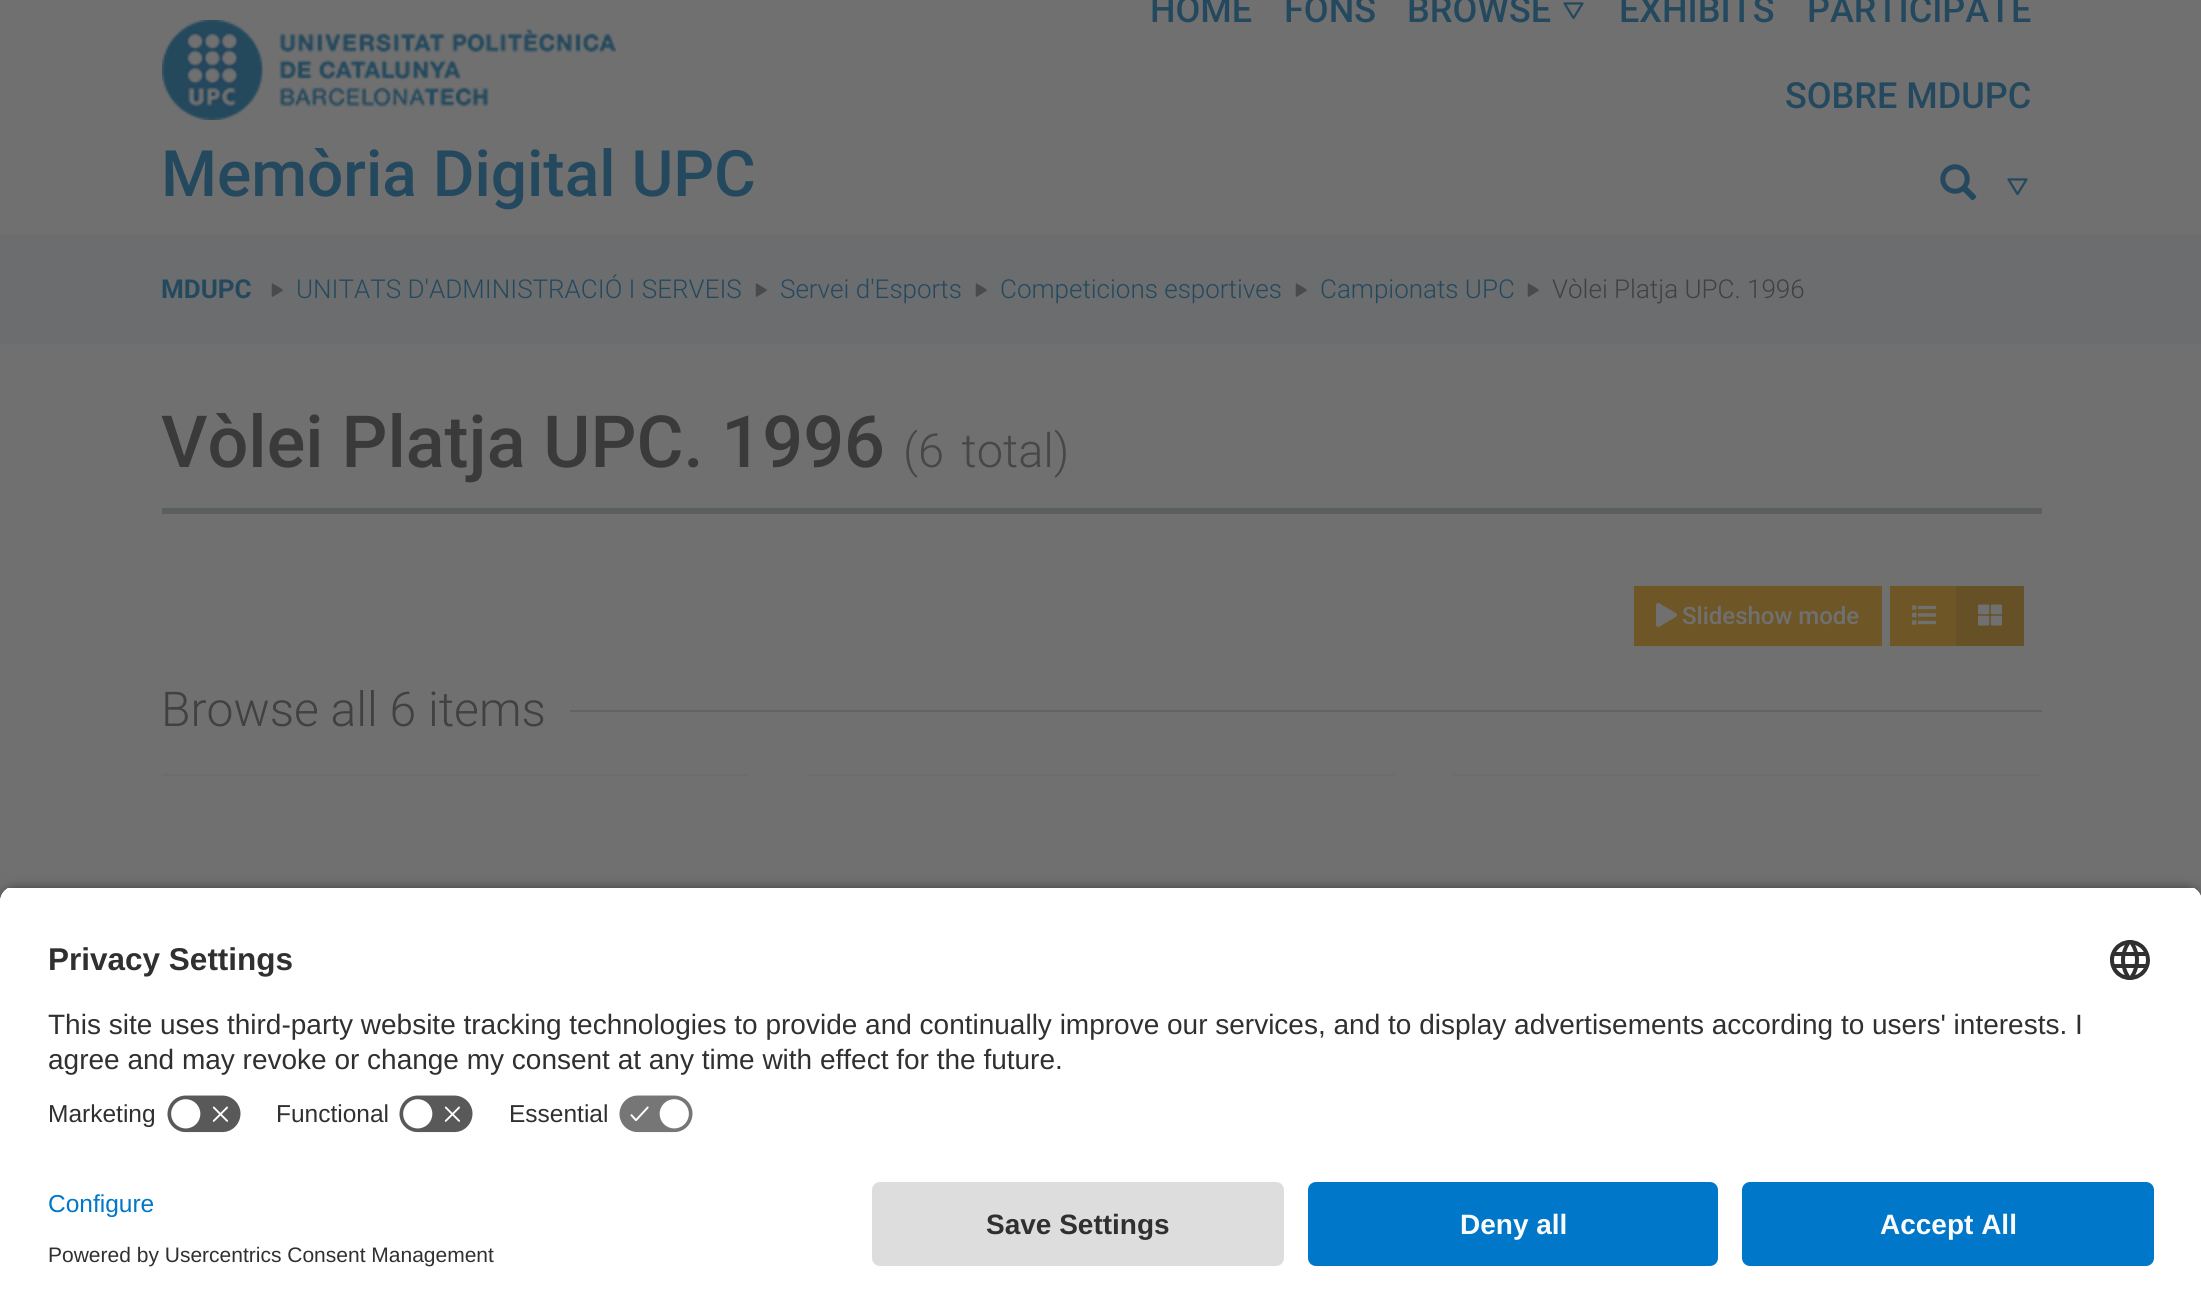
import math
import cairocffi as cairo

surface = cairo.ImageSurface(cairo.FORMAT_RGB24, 2201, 1313)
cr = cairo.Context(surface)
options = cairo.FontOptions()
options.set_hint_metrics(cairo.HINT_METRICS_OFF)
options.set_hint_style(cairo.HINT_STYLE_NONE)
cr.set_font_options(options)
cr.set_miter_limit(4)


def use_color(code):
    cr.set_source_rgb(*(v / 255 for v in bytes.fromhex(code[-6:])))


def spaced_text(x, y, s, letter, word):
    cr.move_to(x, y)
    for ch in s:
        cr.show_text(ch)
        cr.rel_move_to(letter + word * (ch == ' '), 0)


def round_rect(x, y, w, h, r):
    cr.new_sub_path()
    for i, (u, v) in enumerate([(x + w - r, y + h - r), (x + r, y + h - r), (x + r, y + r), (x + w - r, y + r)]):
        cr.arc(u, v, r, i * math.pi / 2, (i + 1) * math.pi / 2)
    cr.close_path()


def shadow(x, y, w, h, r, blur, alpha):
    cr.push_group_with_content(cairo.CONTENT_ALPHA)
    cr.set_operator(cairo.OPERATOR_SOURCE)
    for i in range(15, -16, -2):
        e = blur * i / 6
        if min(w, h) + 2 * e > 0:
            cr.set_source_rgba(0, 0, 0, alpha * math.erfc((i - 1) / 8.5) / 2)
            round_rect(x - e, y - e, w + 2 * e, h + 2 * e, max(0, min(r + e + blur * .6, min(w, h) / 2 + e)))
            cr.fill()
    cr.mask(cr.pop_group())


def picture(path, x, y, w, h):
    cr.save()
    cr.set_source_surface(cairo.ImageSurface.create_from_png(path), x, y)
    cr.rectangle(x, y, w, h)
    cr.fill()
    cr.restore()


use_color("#707070")
cr.paint()
cr.select_font_face("Roboto Medium")
cr.set_font_size(36)
use_color("#24495e")
cr.move_to(1150, 22)
cr.show_text("HOME")
cr.move_to(1284, 22)
cr.show_text("FONS")
cr.move_to(1407, 22)
cr.show_text("BROWSE")
picture("img1.png", 1563, 2, 21, 18)
cr.move_to(1619, 22)
cr.show_text("EXHIBITS")
cr.move_to(1807, 22)
cr.show_text("PARTICIPATE")
cr.move_to(1785, 108)
cr.show_text("SOBRE MDUPC")
picture("img2.png", 1940, 164, 37, 37)
picture("img1.png", 2007, 178, 21, 18)
picture("img3.png", 162, 20, 454, 100)
cr.set_font_size(64)
cr.move_to(161, 196)
cr.show_text("Memòria Digital UPC")
use_color("#6c6d6e")
cr.rectangle(0, 234, 2201, 110)
cr.fill()
cr.select_font_face("Roboto", cairo.FONT_SLANT_NORMAL, cairo.FONT_WEIGHT_BOLD)
cr.set_font_size(26)
use_color("#24495e")
cr.move_to(161, 298)
cr.show_text("MDUPC")
picture("img4.png", 271, 283, 12, 14)
cr.select_font_face("Roboto Light")
cr.move_to(296, 298)
cr.show_text("UNITATS D'ADMINISTRACIÓ I SERVEIS")
picture("img4.png", 755, 283, 12, 14)
cr.move_to(780, 298)
cr.show_text("Servei d'Esports")
picture("img4.png", 975, 283, 12, 14)
cr.move_to(1000, 298)
cr.show_text("Competicions esportives")
picture("img4.png", 1295, 283, 12, 14)
cr.move_to(1320, 298)
cr.show_text("Campionats UPC")
picture("img4.png", 1527, 283, 12, 14)
use_color("#414141")
cr.move_to(1552, 298)
cr.show_text("Vòlei Platja UPC. 1996")
use_color("#5b5f60")
cr.rectangle(162, 508, 1880, 6)
cr.fill()
cr.select_font_face("Roboto Medium")
cr.set_font_size(72)
use_color("#3a3a3a")
cr.move_to(161, 467)
cr.show_text("Vòlei Platja UPC. 1996")
cr.select_font_face("Roboto Light")
cr.set_font_size(47)
use_color("#474747")
spaced_text(903, 467, "(6 total)", 0, 6)
use_color("#6e5626")
cr.rectangle(1634, 586, 248, 60)
cr.fill()
picture("img5.png", 1656, 603, 21, 24)
cr.select_font_face("Roboto Medium")
cr.set_font_size(24)
use_color("#707070")
cr.move_to(1682, 624)
cr.show_text("Slideshow mode")
use_color("#6e5626")
cr.rectangle(1890, 586, 66, 60)
cr.fill()
picture("img6.png", 1912, 605, 24, 20)
use_color("#665126")
cr.rectangle(1956, 586, 68, 60)
cr.fill()
picture("img7.png", 1978, 604, 24, 22)
cr.select_font_face("Roboto Light")
cr.set_font_size(48)
use_color("#414141")
cr.move_to(161, 726)
cr.show_text("Browse all 6 items")
use_color("#626262")
cr.rectangle(570, 710, 1472, 2)
cr.fill()
use_color("#6c6c6c")
cr.rectangle(162, 774, 586, 2)
cr.fill()
cr.rectangle(808, 774, 586, 2)
cr.fill()
cr.rectangle(1454, 774, 586, 2)
cr.fill()
use_color("#000000")
shadow(0, 892, 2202, 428, 16, 7, 0.8)
cr.save()
cr.new_path()
cr.move_to(16, 886)
cr.line_to(2186, 886)
cr.curve_to(2195, 886, 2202, 893, 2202, 902)
cr.line_to(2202, 1166)
cr.line_to(0, 1166)
cr.line_to(0, 902)
cr.curve_to(0, 893, 7, 886, 16, 886)
cr.close_path()
cr.clip()
use_color("#ffffff")
cr.rectangle(0, 888, 2201, 278)
cr.fill()
cr.rectangle(0, 888, 2201, 198)
cr.fill()
cr.restore()
cr.select_font_face("Liberation Sans", cairo.FONT_SLANT_NORMAL, cairo.FONT_WEIGHT_BOLD)
cr.set_font_size(31.5)
use_color("#303030")
cr.move_to(48, 970)
cr.show_text("Privacy Settings")
picture("img8.png", 2110, 940, 40, 40)
cr.select_font_face("Liberation Sans")
cr.set_font_size(28)
cr.move_to(48, 1034)
cr.show_text("This site uses third-party website tracking technologies to provide and continually improve our services, and to display advertisements according to users' interests. I")
cr.move_to(48, 1069)
cr.show_text("agree and may revoke or change my consent at any time with effect for the future.")
cr.set_font_size(24.5)
cr.move_to(48, 1122)
cr.show_text("Marketing")
picture("img9.png", 167, 1095, 74, 38)
cr.move_to(276, 1122)
cr.show_text("Functional")
picture("img9.png", 399, 1095, 74, 38)
cr.move_to(509, 1122)
cr.show_text("Essential")
picture("img10.png", 619, 1095, 74, 38)
use_color("#ffffff")
cr.rectangle(0, 1166, 2201, 147)
cr.fill()
use_color("#0077c8")
cr.move_to(48, 1212)
cr.show_text("Configure")
cr.set_font_size(21)
use_color("#303030")
cr.move_to(48, 1262)
cr.show_text("Powered by Usercentrics Consent Management")
use_color("#dddddd")
round_rect(872, 1182, 412, 84, 8)
cr.fill()
cr.select_font_face("Liberation Sans", cairo.FONT_SLANT_NORMAL, cairo.FONT_WEIGHT_BOLD)
cr.set_font_size(28)
use_color("#303030")
cr.move_to(986, 1234)
cr.show_text("Save Settings")
use_color("#0077c8")
round_rect(1308, 1182, 410, 84, 8)
cr.fill()
use_color("#fafafa")
cr.move_to(1460, 1234)
cr.show_text("Deny all")
use_color("#0077c8")
round_rect(1742, 1182, 412, 84, 8)
cr.fill()
use_color("#fafafa")
cr.move_to(1880, 1234)
cr.show_text("Accept All")
surface.write_to_png("result.png")
